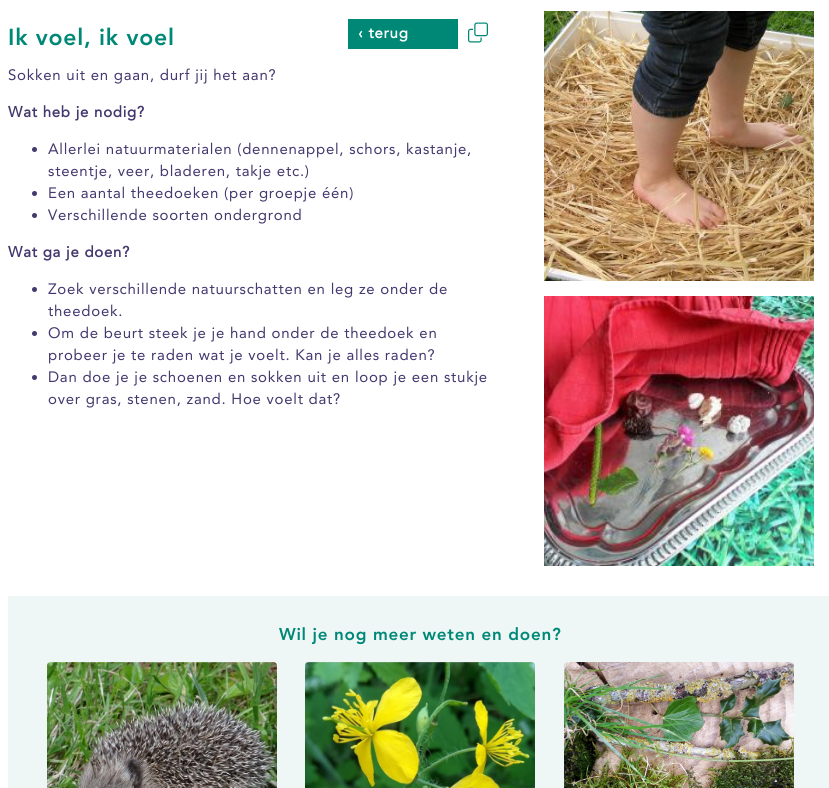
import math
import cairocffi as cairo

surface = cairo.ImageSurface(cairo.FORMAT_RGB24, 829, 788)
cr = cairo.Context(surface)
options = cairo.FontOptions()
options.set_hint_metrics(cairo.HINT_METRICS_OFF)
options.set_hint_style(cairo.HINT_STYLE_NONE)
cr.set_font_options(options)
cr.set_miter_limit(4)


def use_color(code):
    cr.set_source_rgb(*(v / 255 for v in bytes.fromhex(code[-6:])))


def spaced_text(x, y, s, letter, word):
    cr.move_to(x, y)
    for ch in s:
        cr.show_text(ch)
        cr.rel_move_to(letter + word * (ch == ' '), 0)


def picture(path, x, y, w, h):
    cr.save()
    cr.set_source_surface(cairo.ImageSurface.create_from_png(path), x, y)
    cr.rectangle(x, y, w, h)
    cr.fill()
    cr.restore()


use_color("#ffffff")
cr.paint()
cr.select_font_face("Avenir Black")
cr.set_font_size(23)
use_color("#008877")
spaced_text(8, 45, "Ik voel, ik voel", 0.75, 0)
cr.rectangle(348, 19, 110, 30)
cr.fill()
cr.select_font_face("Avenir", cairo.FONT_SLANT_NORMAL, cairo.FONT_WEIGHT_BOLD)
cr.set_font_size(15)
use_color("#ffffff")
spaced_text(358, 38, "‹ terug", 0.75, 0)
picture("img1.png", 468, 22, 20, 21)
cr.select_font_face("Avenir")
use_color("#44386f")
spaced_text(8, 80, "Sokken uit en gaan, durf jij het aan?", 0.75, 0)
cr.select_font_face("Avenir", cairo.FONT_SLANT_NORMAL, cairo.FONT_WEIGHT_BOLD)
spaced_text(8, 117, "Wat heb je nodig?", 0.75, 0)
cr.new_path()
cr.arc(34.5, 149.5, 2.5, 0, 2 * math.pi)
cr.fill()
cr.select_font_face("Avenir")
spaced_text(48, 154, "Allerlei natuurmaterialen (dennenappel, schors, kastanje,", 0.75, 0)
spaced_text(48, 176, "steentje, veer, bladeren, takje etc.)", 0.75, 0)
cr.new_path()
cr.arc(34.5, 193.5, 2.5, 0, 2 * math.pi)
cr.fill()
spaced_text(48, 198, "Een aantal theedoeken (per groepje één)", 0.75, 0)
cr.new_path()
cr.arc(34.5, 215.5, 2.5, 0, 2 * math.pi)
cr.fill()
spaced_text(48, 220, "Verschillende soorten ondergrond", 0.75, 0)
cr.select_font_face("Avenir", cairo.FONT_SLANT_NORMAL, cairo.FONT_WEIGHT_BOLD)
spaced_text(8, 257, "Wat ga je doen?", 0.75, 0)
cr.new_path()
cr.arc(34.5, 289.5, 2.5, 0, 2 * math.pi)
cr.fill()
cr.select_font_face("Avenir")
spaced_text(48, 294, "Zoek verschillende natuurschatten en leg ze onder de", 0.75, 0)
spaced_text(48, 316, "theedoek.", 0.75, 0)
cr.new_path()
cr.arc(34.5, 333.5, 2.5, 0, 2 * math.pi)
cr.fill()
spaced_text(48, 338, "Om de beurt steek je je hand onder de theedoek en", 0.75, 0)
spaced_text(48, 360, "probeer je te raden wat je voelt. Kan je alles raden?", 0.75, 0)
cr.new_path()
cr.arc(34.5, 377.5, 2.5, 0, 2 * math.pi)
cr.fill()
spaced_text(48, 382, "Dan doe je je schoenen en sokken uit en loop je een stukje", 0.75, 0)
spaced_text(48, 404, "over gras, stenen, zand. Hoe voelt dat?", 0.75, 0)
picture("img2.png", 544, 11, 270, 270)
picture("img3.png", 544, 296, 270, 270)
use_color("#eff6f6")
cr.rectangle(8, 596, 821, 192)
cr.fill()
cr.select_font_face("Avenir Black")
cr.set_font_size(17)
use_color("#008877")
spaced_text(279, 640, "Wil je nog meer weten en doen?", 0.75, 0)
picture("img4.png", 47, 662, 230, 126)
picture("img5.png", 305, 662, 230, 126)
picture("img6.png", 564, 662, 230, 126)
surface.write_to_png("result.png")
